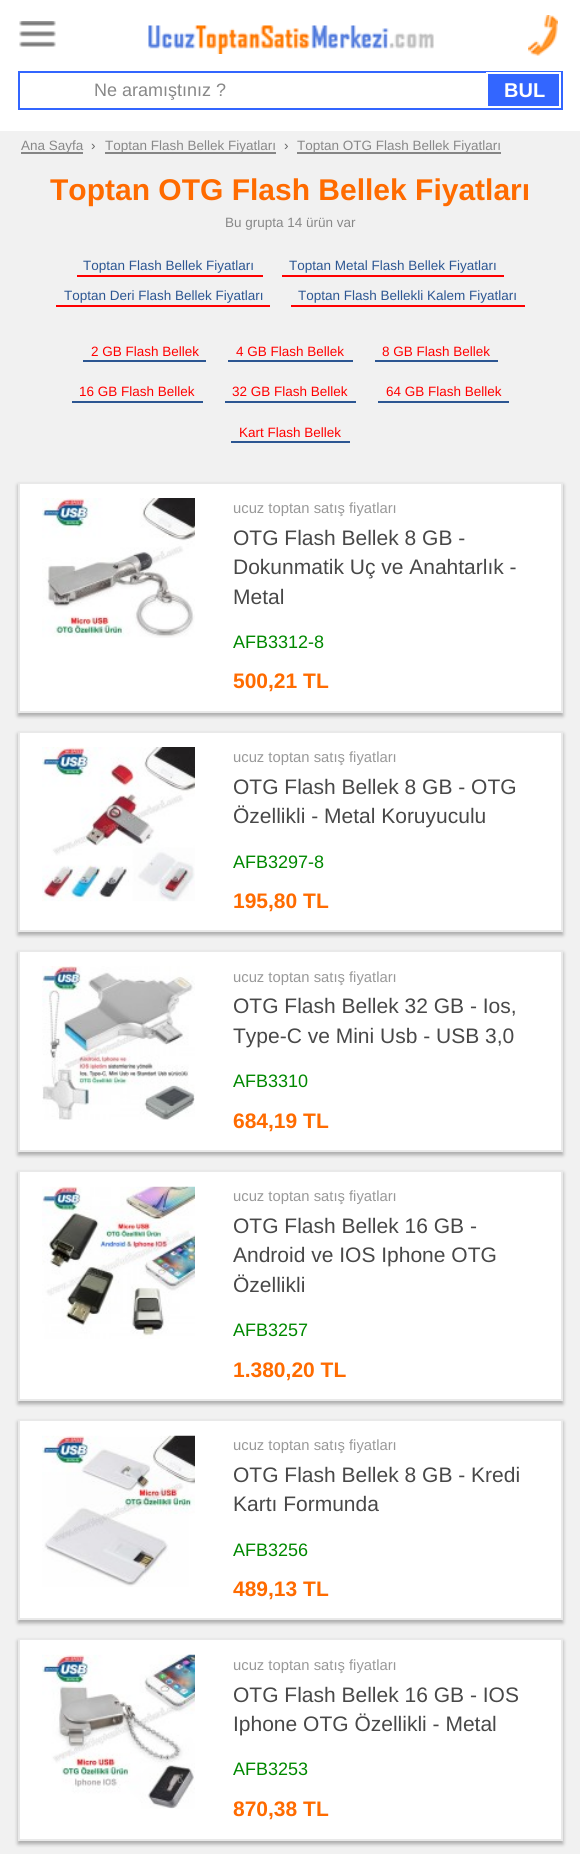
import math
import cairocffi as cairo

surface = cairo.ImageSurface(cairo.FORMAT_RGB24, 580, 1854)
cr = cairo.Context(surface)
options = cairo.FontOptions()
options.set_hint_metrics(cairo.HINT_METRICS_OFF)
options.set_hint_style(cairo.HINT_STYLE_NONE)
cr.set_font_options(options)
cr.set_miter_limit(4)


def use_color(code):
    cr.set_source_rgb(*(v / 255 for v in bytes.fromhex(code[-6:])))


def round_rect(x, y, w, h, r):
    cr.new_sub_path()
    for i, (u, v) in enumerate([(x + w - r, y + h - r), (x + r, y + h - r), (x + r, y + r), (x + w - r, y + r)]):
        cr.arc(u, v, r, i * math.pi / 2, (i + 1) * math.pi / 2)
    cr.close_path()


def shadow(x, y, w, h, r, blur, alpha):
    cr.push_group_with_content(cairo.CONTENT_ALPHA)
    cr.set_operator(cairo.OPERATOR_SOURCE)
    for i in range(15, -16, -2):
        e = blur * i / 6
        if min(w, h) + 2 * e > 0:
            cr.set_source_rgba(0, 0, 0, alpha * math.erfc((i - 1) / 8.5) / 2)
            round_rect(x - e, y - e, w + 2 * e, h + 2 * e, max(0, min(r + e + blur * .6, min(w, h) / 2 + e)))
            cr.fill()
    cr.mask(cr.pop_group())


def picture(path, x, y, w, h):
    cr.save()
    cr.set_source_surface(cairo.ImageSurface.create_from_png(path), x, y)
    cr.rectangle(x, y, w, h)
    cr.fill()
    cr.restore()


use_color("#ffffff")
cr.paint()
picture("img1.png", 19, 21, 37, 26)
picture("img2.png", 148, 25, 286, 29)
picture("img3.png", 528, 15, 30, 41)
cr.rectangle(19, 72, 543, 37)
use_color("#3366ff")
cr.stroke()
cr.select_font_face("Liberation Sans")
cr.set_font_size(18)
use_color("#888888")
cr.move_to(94, 96)
cr.show_text("Ne aramıştınız ?")
use_color("#3366ff")
cr.rectangle(487, 73, 73, 34)
cr.fill_preserve()
use_color("#ffffff")
cr.stroke()
cr.select_font_face("Liberation Sans", cairo.FONT_SLANT_NORMAL, cairo.FONT_WEIGHT_BOLD)
cr.set_font_size(20)
cr.move_to(504, 97)
cr.show_text("BUL")
use_color("#f1f1f1")
cr.rectangle(0, 131, 580, 1723)
cr.fill()
use_color("#858585")
cr.rectangle(21, 152, 62, 2)
cr.fill()
cr.select_font_face("Liberation Sans")
cr.set_font_size(13.5)
use_color("#888888")
cr.move_to(21, 150)
cr.show_text("Ana Sayfa")
use_color("#666666")
cr.move_to(91, 150)
cr.show_text("›")
use_color("#858585")
cr.rectangle(105, 152, 171, 2)
cr.fill()
use_color("#888888")
cr.move_to(105, 150)
cr.show_text("Toptan Flash Bellek Fiyatları")
use_color("#666666")
cr.move_to(284, 150)
cr.show_text("›")
use_color("#858585")
cr.rectangle(297, 152, 204, 2)
cr.fill()
use_color("#888888")
cr.move_to(297, 150)
cr.show_text("Toptan OTG Flash Bellek Fiyatları")
cr.select_font_face("Liberation Sans", cairo.FONT_SLANT_NORMAL, cairo.FONT_WEIGHT_BOLD)
cr.set_font_size(30)
use_color("#ff6b00")
cr.move_to(50, 200)
cr.show_text("Toptan OTG Flash Bellek Fiyatları")
cr.select_font_face("Liberation Sans")
cr.set_font_size(13.5)
use_color("#888888")
cr.move_to(225, 227)
cr.show_text("Bu grupta 14 ürün var")
use_color("#ff0000")
cr.rectangle(77, 275, 186, 2)
cr.fill()
use_color("#2c5692")
cr.move_to(83, 270)
cr.show_text("Toptan Flash Bellek Fiyatları")
use_color("#ff0000")
cr.rectangle(282, 275, 222, 2)
cr.fill()
use_color("#2c5692")
cr.move_to(289, 270)
cr.show_text("Toptan Metal Flash Bellek Fiyatları")
use_color("#ff0000")
cr.rectangle(56, 305, 214, 2)
cr.fill()
use_color("#2c5692")
cr.move_to(64, 300)
cr.show_text("Toptan Deri Flash Bellek Fiyatları")
use_color("#ff0000")
cr.rectangle(291, 305, 234, 2)
cr.fill()
use_color("#2c5692")
cr.move_to(298, 300)
cr.show_text("Toptan Flash Bellekli Kalem Fiyatları")
cr.rectangle(83, 360, 123, 2)
cr.fill()
use_color("#ff0000")
cr.move_to(91, 356)
cr.show_text("2 GB Flash Bellek")
use_color("#2c5692")
cr.rectangle(228, 360, 125, 2)
cr.fill()
use_color("#ff0000")
cr.move_to(236, 356)
cr.show_text("4 GB Flash Bellek")
use_color("#2c5692")
cr.rectangle(375, 360, 123, 2)
cr.fill()
use_color("#ff0000")
cr.move_to(382, 356)
cr.show_text("8 GB Flash Bellek")
use_color("#2c5692")
cr.rectangle(72, 401, 131, 2)
cr.fill()
use_color("#ff0000")
cr.move_to(79, 396)
cr.show_text("16 GB Flash Bellek")
use_color("#2c5692")
cr.rectangle(225, 401, 131, 2)
cr.fill()
use_color("#ff0000")
cr.move_to(232, 396)
cr.show_text("32 GB Flash Bellek")
use_color("#2c5692")
cr.rectangle(378, 401, 131, 2)
cr.fill()
use_color("#ff0000")
cr.move_to(386, 396)
cr.show_text("64 GB Flash Bellek")
use_color("#2c5692")
cr.rectangle(231, 441, 119, 2)
cr.fill()
use_color("#ff0000")
cr.move_to(239, 437)
cr.show_text("Kart Flash Bellek")
use_color("#000000")
shadow(18, 485, 545, 231, 0, 2, 0.3)
use_color("#ffffff")
cr.rectangle(19, 483, 543, 229)
cr.fill_preserve()
use_color("#e9e9e9")
cr.stroke()
picture("img4.png", 42, 498, 153, 140)
cr.set_font_size(14.8)
use_color("#999999")
cr.move_to(233, 513)
cr.show_text("ucuz toptan satış fiyatları")
cr.set_font_size(21)
use_color("#484848")
cr.move_to(233, 545)
cr.show_text("OTG Flash Bellek 8 GB -")
cr.move_to(233, 574)
cr.show_text("Dokunmatik Uç ve Anahtarlık -")
cr.move_to(233, 604)
cr.show_text("Metal")
cr.set_font_size(18)
use_color("#008800")
cr.move_to(233, 648)
cr.show_text("AFB3312-8")
cr.select_font_face("Liberation Sans", cairo.FONT_SLANT_NORMAL, cairo.FONT_WEIGHT_BOLD)
cr.set_font_size(21)
use_color("#ff6b00")
cr.move_to(233, 688)
cr.show_text("500,21 TL")
use_color("#000000")
shadow(18, 734, 545, 201, 0, 2, 0.3)
use_color("#ffffff")
cr.rectangle(19, 732, 543, 199)
cr.fill_preserve()
use_color("#e9e9e9")
cr.stroke()
picture("img5.png", 42, 747, 153, 155)
cr.select_font_face("Liberation Sans")
cr.set_font_size(14.8)
use_color("#999999")
cr.move_to(233, 762)
cr.show_text("ucuz toptan satış fiyatları")
cr.set_font_size(21)
use_color("#484848")
cr.move_to(233, 794)
cr.show_text("OTG Flash Bellek 8 GB - OTG")
cr.move_to(233, 823)
cr.show_text("Özellikli - Metal Koruyuculu")
cr.set_font_size(18)
use_color("#008800")
cr.move_to(233, 868)
cr.show_text("AFB3297-8")
cr.select_font_face("Liberation Sans", cairo.FONT_SLANT_NORMAL, cairo.FONT_WEIGHT_BOLD)
cr.set_font_size(21)
use_color("#ff6b00")
cr.move_to(233, 908)
cr.show_text("195,80 TL")
use_color("#000000")
shadow(18, 953, 545, 202, 0, 2, 0.3)
use_color("#ffffff")
cr.rectangle(19, 951, 543, 200)
cr.fill_preserve()
use_color("#e9e9e9")
cr.stroke()
picture("img6.png", 42, 966, 153, 154)
cr.select_font_face("Liberation Sans")
cr.set_font_size(14.8)
use_color("#999999")
cr.move_to(233, 982)
cr.show_text("ucuz toptan satış fiyatları")
cr.set_font_size(21)
use_color("#484848")
cr.move_to(233, 1013)
cr.show_text("OTG Flash Bellek 32 GB - Ios,")
cr.move_to(233, 1043)
cr.show_text("Type-C ve Mini Usb - USB 3,0")
cr.set_font_size(18)
use_color("#008800")
cr.move_to(233, 1087)
cr.show_text("AFB3310")
cr.select_font_face("Liberation Sans", cairo.FONT_SLANT_NORMAL, cairo.FONT_WEIGHT_BOLD)
cr.set_font_size(21)
use_color("#ff6b00")
cr.move_to(233, 1128)
cr.show_text("684,19 TL")
use_color("#000000")
shadow(18, 1173, 545, 231, 0, 2, 0.3)
use_color("#ffffff")
cr.rectangle(19, 1171, 543, 229)
cr.fill_preserve()
use_color("#e9e9e9")
cr.stroke()
picture("img7.png", 42, 1186, 153, 153)
cr.select_font_face("Liberation Sans")
cr.set_font_size(14.8)
use_color("#999999")
cr.move_to(233, 1201)
cr.show_text("ucuz toptan satış fiyatları")
cr.set_font_size(21)
use_color("#484848")
cr.move_to(233, 1233)
cr.show_text("OTG Flash Bellek 16 GB -")
cr.move_to(233, 1262)
cr.show_text("Android ve IOS Iphone OTG")
cr.move_to(233, 1292)
cr.show_text("Özellikli")
cr.set_font_size(18)
use_color("#008800")
cr.move_to(233, 1336)
cr.show_text("AFB3257")
cr.select_font_face("Liberation Sans", cairo.FONT_SLANT_NORMAL, cairo.FONT_WEIGHT_BOLD)
cr.set_font_size(21)
use_color("#ff6b00")
cr.move_to(233, 1377)
cr.show_text("1.380,20 TL")
use_color("#000000")
shadow(18, 1422, 545, 201, 0, 2, 0.3)
use_color("#ffffff")
cr.rectangle(19, 1420, 543, 199)
cr.fill_preserve()
use_color("#e9e9e9")
cr.stroke()
picture("img8.png", 42, 1435, 153, 152)
cr.select_font_face("Liberation Sans")
cr.set_font_size(14.8)
use_color("#999999")
cr.move_to(233, 1450)
cr.show_text("ucuz toptan satış fiyatları")
cr.set_font_size(21)
use_color("#484848")
cr.move_to(233, 1482)
cr.show_text("OTG Flash Bellek 8 GB - Kredi")
cr.move_to(233, 1511)
cr.show_text("Kartı Formunda")
cr.set_font_size(18)
use_color("#008800")
cr.move_to(233, 1556)
cr.show_text("AFB3256")
cr.select_font_face("Liberation Sans", cairo.FONT_SLANT_NORMAL, cairo.FONT_WEIGHT_BOLD)
cr.set_font_size(21)
use_color("#ff6b00")
cr.move_to(233, 1596)
cr.show_text("489,13 TL")
use_color("#000000")
shadow(18, 1641, 545, 203, 0, 2, 0.3)
use_color("#ffffff")
cr.rectangle(19, 1639, 543, 201)
cr.fill_preserve()
use_color("#e9e9e9")
cr.stroke()
picture("img9.png", 42, 1654, 153, 155)
cr.select_font_face("Liberation Sans")
cr.set_font_size(14.8)
use_color("#999999")
cr.move_to(233, 1670)
cr.show_text("ucuz toptan satış fiyatları")
cr.set_font_size(21)
use_color("#484848")
cr.move_to(233, 1702)
cr.show_text("OTG Flash Bellek 16 GB - IOS")
cr.move_to(233, 1731)
cr.show_text("Iphone OTG Özellikli - Metal")
cr.set_font_size(18)
use_color("#008800")
cr.move_to(233, 1775)
cr.show_text("AFB3253")
cr.select_font_face("Liberation Sans", cairo.FONT_SLANT_NORMAL, cairo.FONT_WEIGHT_BOLD)
cr.set_font_size(21)
use_color("#ff6b00")
cr.move_to(233, 1816)
cr.show_text("870,38 TL")
surface.write_to_png("result.png")
